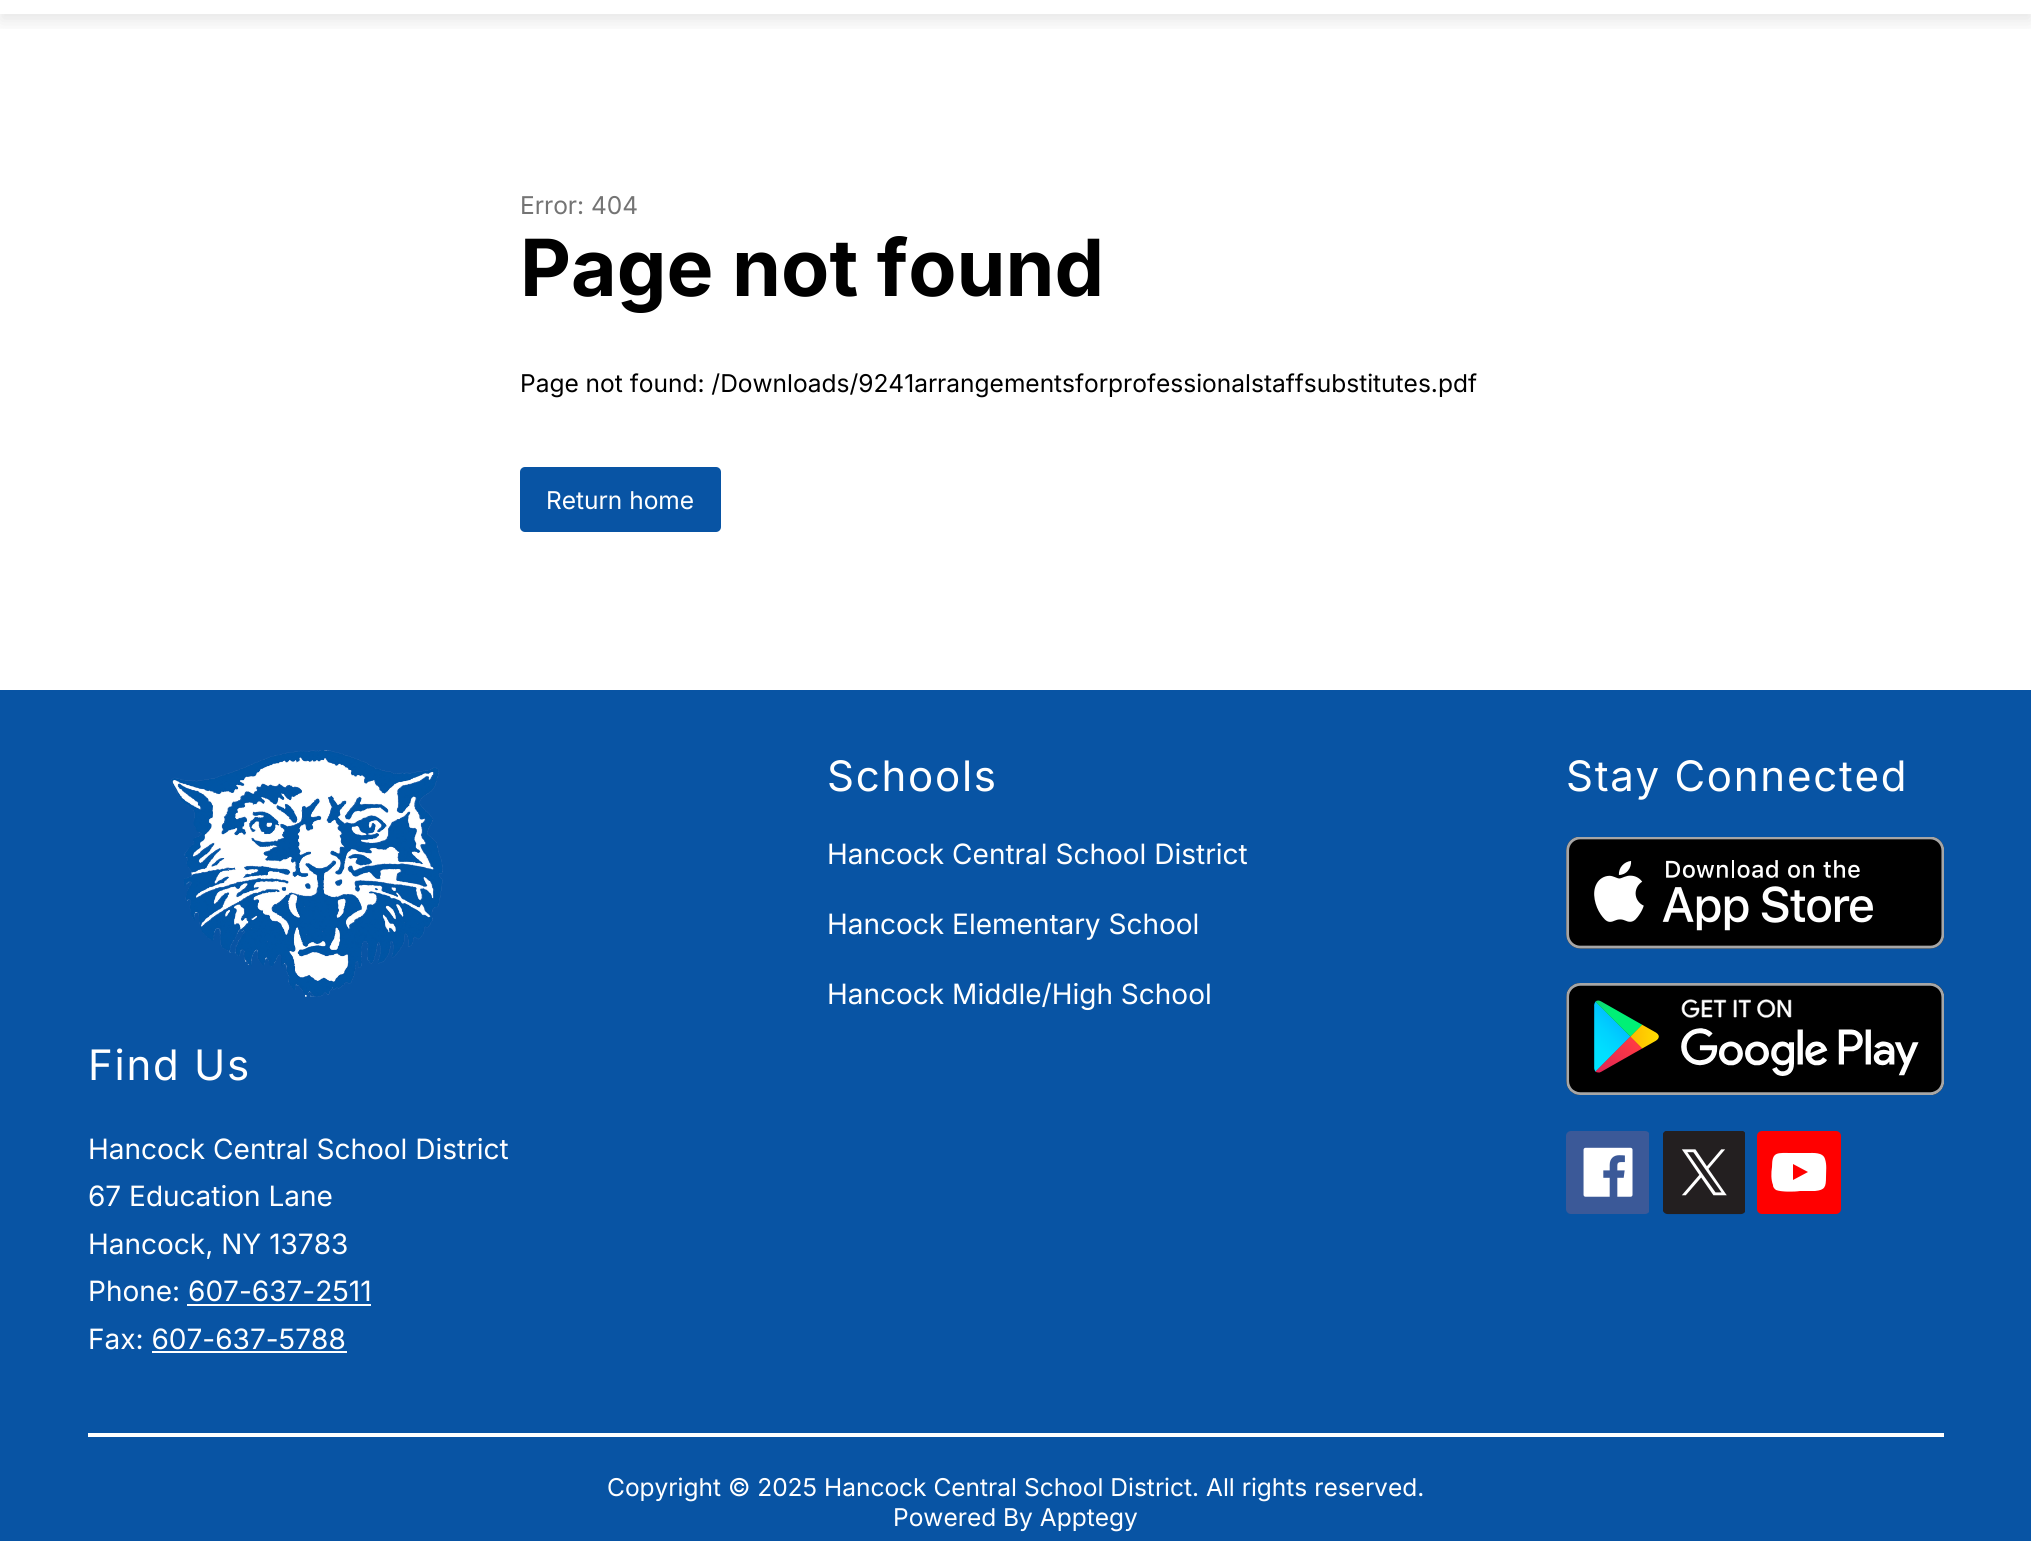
import math
import cairocffi as cairo

surface = cairo.ImageSurface(cairo.FORMAT_RGB24, 2031, 1541)
cr = cairo.Context(surface)
options = cairo.FontOptions()
options.set_hint_metrics(cairo.HINT_METRICS_OFF)
options.set_hint_style(cairo.HINT_STYLE_NONE)
cr.set_font_options(options)
cr.set_miter_limit(4)


def use_color(code):
    cr.set_source_rgb(*(v / 255 for v in bytes.fromhex(code[-6:])))


def spaced_text(x, y, s, letter, word):
    cr.move_to(x, y)
    for ch in s:
        cr.show_text(ch)
        cr.rel_move_to(letter + word * (ch == ' '), 0)


def round_rect(x, y, w, h, r):
    cr.new_sub_path()
    for i, (u, v) in enumerate([(x + w - r, y + h - r), (x + r, y + h - r), (x + r, y + r), (x + w - r, y + r)]):
        cr.arc(u, v, r, i * math.pi / 2, (i + 1) * math.pi / 2)
    cr.close_path()


def shadow(x, y, w, h, r, blur, alpha):
    cr.push_group_with_content(cairo.CONTENT_ALPHA)
    cr.set_operator(cairo.OPERATOR_SOURCE)
    for i in range(15, -16, -2):
        e = blur * i / 6
        if min(w, h) + 2 * e > 0:
            cr.set_source_rgba(0, 0, 0, alpha * math.erfc((i - 1) / 8.5) / 2)
            round_rect(x - e, y - e, w + 2 * e, h + 2 * e, max(0, min(r + e + blur * .6, min(w, h) / 2 + e)))
            cr.fill()
    cr.mask(cr.pop_group())


def picture(path, x, y, w, h):
    cr.save()
    cr.set_source_surface(cairo.ImageSurface.create_from_png(path), x, y)
    cr.rectangle(x, y, w, h)
    cr.fill()
    cr.restore()


use_color("#ffffff")
cr.paint()
cr.save()
cr.rectangle(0, 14, 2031, 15)
cr.clip()
use_color("#000000")
shadow(0, -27, 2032, 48, 0, 9, 0.1)
cr.restore()
cr.select_font_face("Inter")
cr.set_font_size(24.5)
use_color("#747474")
cr.move_to(520, 214)
cr.show_text("Error: 404")
cr.select_font_face("Inter", cairo.FONT_SLANT_NORMAL, cairo.FONT_WEIGHT_BOLD)
cr.set_font_size(78.75)
use_color("#000000")
cr.move_to(520, 296)
cr.show_text("Page not found")
cr.select_font_face("Inter")
cr.set_font_size(24.5)
cr.move_to(520, 392)
cr.show_text("Page not found: /Downloads/9241arrangementsforprofessionalstaffsubstitutes.pdf")
use_color("#0854a4")
round_rect(520, 467, 201, 65, 5)
cr.fill()
use_color("#ffffff")
cr.move_to(546, 509)
cr.show_text("Return home")
use_color("#0854a4")
cr.rectangle(0, 690, 2031, 851)
cr.fill()
cr.set_font_size(42)
use_color("#ffffff")
spaced_text(827, 791, "Schools", 1.75, 0)
cr.set_font_size(28)
cr.move_to(827, 864)
cr.show_text("Hancock Central School District")
cr.move_to(827, 934)
cr.show_text("Hancock Elementary School")
cr.move_to(827, 1004)
cr.show_text("Hancock Middle/High School")
cr.set_font_size(42)
spaced_text(1566, 791, "Stay Connected", 1.75, 0)
picture("img1.png", 1566, 837, 378, 112)
picture("img2.png", 1566, 983, 378, 112)
picture("img3.png", 1566, 1131, 83, 83)
picture("img4.png", 1663, 1131, 82, 84)
use_color("#ff0000")
round_rect(1757, 1131, 84, 83, 5)
cr.fill()
use_color("#ffffff")
cr.new_path()
cr.move_to(1825, 1159)
cr.curve_to(1823, 1152, 1813, 1153, 1808, 1153)
cr.line_to(1793, 1153)
cr.curve_to(1777, 1153, 1772, 1151, 1772, 1167)
cr.curve_to(1771, 1173, 1771, 1180, 1773, 1185)
cr.curve_to(1773, 1188, 1775, 1189, 1776, 1190)
cr.curve_to(1781, 1192, 1794, 1192, 1800, 1191)
cr.line_to(1815, 1191)
cr.curve_to(1825, 1190, 1826, 1187, 1826, 1177)
cr.curve_to(1826, 1171, 1827, 1165, 1825, 1159)
cr.close_path()
cr.move_to(1793, 1180)
cr.line_to(1793, 1164)
cr.line_to(1808, 1172)
cr.close_path()
cr.fill()
picture("img5.png", 171, 750, 272, 247)
spaced_text(88, 1080, "Find Us", 1.75, 0)
cr.set_font_size(28)
cr.move_to(88, 1159)
cr.show_text("Hancock Central School District")
cr.move_to(88, 1206)
cr.show_text("67 Education Lane")
cr.move_to(88, 1254)
cr.show_text("Hancock, NY 13783")
cr.move_to(88, 1301)
cr.show_text("Phone: 607-637-2511")
cr.rectangle(187, 1304, 184, 2)
cr.fill()
cr.move_to(88, 1349)
cr.show_text("Fax: 607-637-5788")
cr.rectangle(152, 1351, 195, 2)
cr.fill()
cr.rectangle(88, 1433, 1856, 4)
cr.fill()
cr.set_font_size(24.5)
cr.move_to(607, 1496)
cr.show_text("Copyright © 2025 Hancock Central School District. All rights reserved.")
cr.move_to(893, 1526)
cr.show_text("Powered By Apptegy")
surface.write_to_png("result.png")
